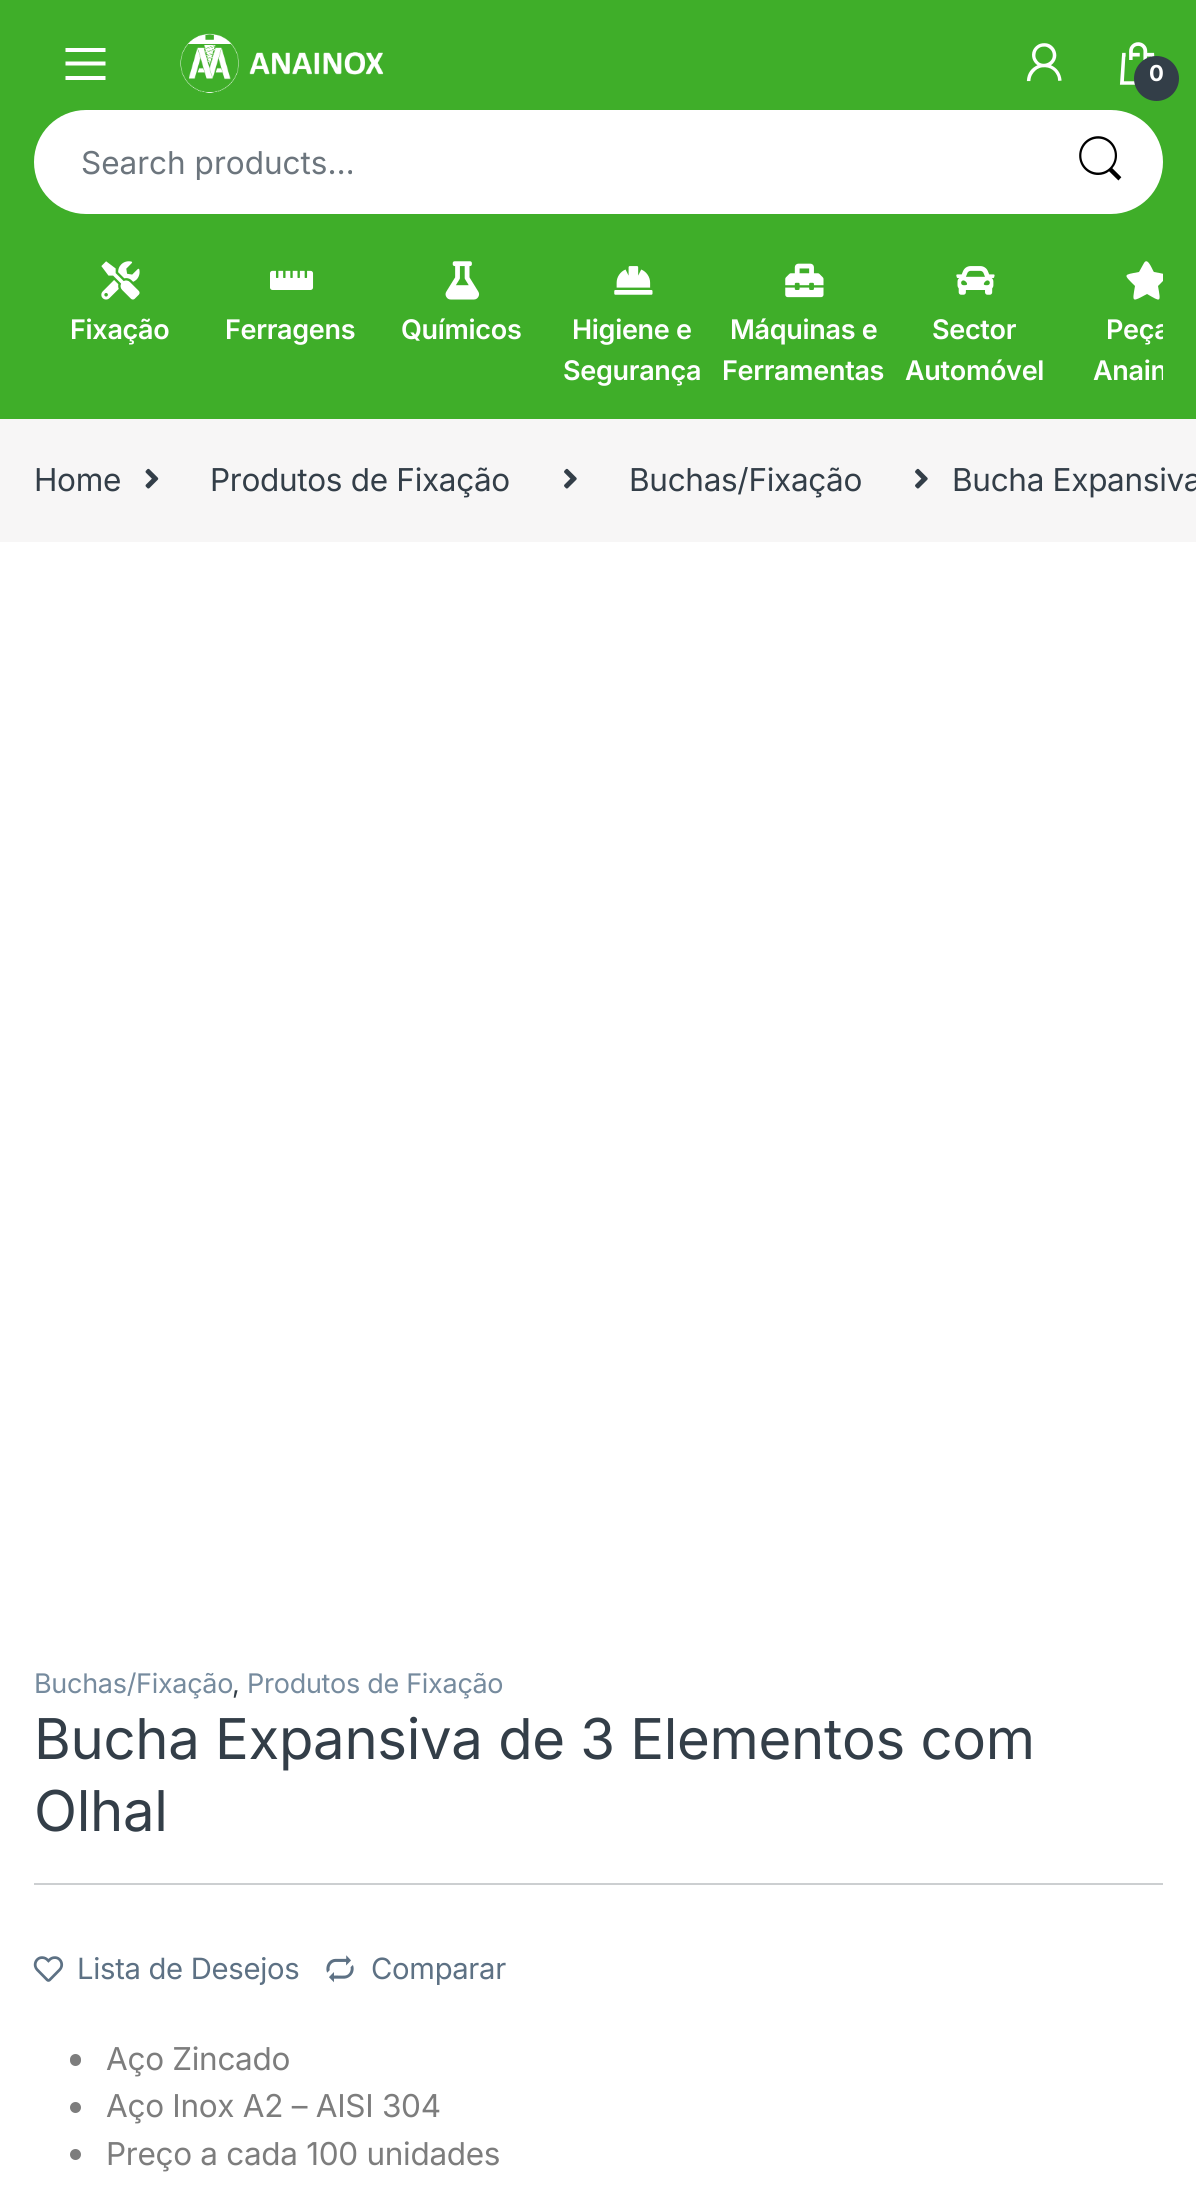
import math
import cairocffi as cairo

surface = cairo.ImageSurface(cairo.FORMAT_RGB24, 1196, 2203)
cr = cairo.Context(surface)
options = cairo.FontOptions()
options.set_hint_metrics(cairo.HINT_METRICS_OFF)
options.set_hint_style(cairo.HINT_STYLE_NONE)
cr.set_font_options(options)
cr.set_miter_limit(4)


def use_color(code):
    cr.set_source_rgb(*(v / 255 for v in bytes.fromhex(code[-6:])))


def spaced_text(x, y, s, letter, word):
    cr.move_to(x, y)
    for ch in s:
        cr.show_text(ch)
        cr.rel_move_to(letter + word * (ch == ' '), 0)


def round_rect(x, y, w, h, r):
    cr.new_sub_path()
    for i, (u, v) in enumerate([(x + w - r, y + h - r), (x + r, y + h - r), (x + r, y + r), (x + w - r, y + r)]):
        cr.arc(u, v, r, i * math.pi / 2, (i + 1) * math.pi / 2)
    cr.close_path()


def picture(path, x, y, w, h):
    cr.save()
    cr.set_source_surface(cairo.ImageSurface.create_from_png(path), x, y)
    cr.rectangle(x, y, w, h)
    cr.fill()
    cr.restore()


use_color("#ffffff")
cr.paint()
use_color("#3fae29")
cr.rectangle(0, 0, 1196, 419)
cr.fill()
use_color("#ffffff")
cr.new_path()
cr.move_to(65.5, 80)
cr.line_to(65.5, 76)
cr.line_to(105.5, 76)
cr.line_to(105.5, 80)
cr.close_path()
cr.move_to(65.5, 61.5)
cr.line_to(105.5, 61.5)
cr.line_to(105.5, 65.5)
cr.line_to(65.5, 65.5)
cr.close_path()
cr.move_to(65.5, 48)
cr.line_to(105.5, 48)
cr.line_to(105.5, 52)
cr.line_to(65.5, 52)
cr.close_path()
cr.fill()
picture("img1.png", 180, 33, 204, 60)
picture("img2.png", 1026, 43, 36, 39)
picture("img3.png", 1119, 42, 36, 43)
use_color("#333e48")
cr.arc(1156.5, 78.5, 22.5, 0, 2 * math.pi)
cr.fill()
cr.select_font_face("Inter", cairo.FONT_SLANT_NORMAL, cairo.FONT_WEIGHT_BOLD)
cr.set_font_size(22)
use_color("#ffffff")
spaced_text(1149, 81, "0", -0.3, 0)
round_rect(34, 110, 1129, 104, 52)
cr.fill()
cr.save()
cr.rectangle(81, 142, 878, 38)
cr.clip()
cr.select_font_face("Inter")
cr.set_font_size(31.5)
use_color("#6c757d")
cr.move_to(81, 174)
cr.show_text("Search products…")
cr.restore()
picture("img4.png", 1079, 136, 43, 45)
picture("img5.png", 101, 261, 39, 39)
cr.select_font_face("Inter SemiBold")
cr.set_font_size(27)
spaced_text(70, 339, "Fixação", -0.3, 0)
picture("img6.png", 270, 270, 44, 20)
spaced_text(225, 339, "Ferragens", -0.3, 0)
picture("img7.png", 445, 261, 35, 39)
spaced_text(401, 339, "Químicos", -0.3, 0)
picture("img8.png", 614, 266, 39, 29)
spaced_text(572, 339, "Higiene e", -0.3, 0)
spaced_text(563, 380, "Segurança", -0.3, 0)
picture("img9.png", 785, 263, 39, 35)
spaced_text(730, 339, "Máquinas e", -0.3, 0)
spaced_text(722, 380, "Ferramentas", -0.3, 0)
picture("img10.png", 956, 266, 39, 29)
spaced_text(932, 339, "Sector", -0.3, 0)
spaced_text(905, 380, "Automóvel", -0.3, 0)
cr.save()
cr.rectangle(34, 261, 1129, 131)
cr.clip()
cr.new_path()
cr.move_to(1144, 263)
cr.curve_to(1148, 256, 1153, 272, 1154, 272)
cr.curve_to(1170, 275, 1170, 274, 1158, 286)
cr.curve_to(1161, 303, 1161, 302, 1147, 294)
cr.curve_to(1132, 302, 1132, 303, 1135, 286)
cr.curve_to(1123, 274, 1123, 275, 1139, 272)
cr.close_path()
cr.fill()
spaced_text(1106, 339, "Peça", -0.3, 0)
spaced_text(1093, 380, "Anain", -0.3, 0)
cr.restore()
use_color("#f7f6f6")
cr.rectangle(0, 419, 1196, 123)
cr.fill()
cr.select_font_face("Inter")
cr.set_font_size(31.5)
use_color("#333e48")
spaced_text(34, 491, "Home", -0.3, 0)
picture("img11.png", 145, 468, 14, 21)
spaced_text(210, 491, "Produtos de Fixação", -0.3, 0)
picture("img12.png", 564, 468, 13, 21)
spaced_text(629, 491, "Buchas/Fixação", -0.3, 0)
picture("img12.png", 915, 468, 13, 21)
spaced_text(952, 491, "Bucha Expansiva", -0.3, 0)
cr.set_font_size(27)
use_color("#768b9e")
spaced_text(34, 1693, "Buchas/Fixação", -0.3, 0)
use_color("#333e48")
spaced_text(232, 1693, ",", -0.3, 0)
use_color("#768b9e")
spaced_text(247, 1693, "Produtos de Fixação", -0.3, 0)
cr.set_font_size(56.25)
use_color("#333e48")
spaced_text(34, 1759, "Bucha Expansiva de 3 Elementos com", -0.3, 0)
spaced_text(34, 1831, "Olhal", -0.3, 0)
use_color("#cccfd1")
cr.rectangle(34, 1883, 1129, 2)
cr.fill()
picture("img13.png", 33, 1956, 31, 26)
cr.set_font_size(29.25)
use_color("#5d7184")
spaced_text(77, 1979, "Lista de Desejos", -0.3, 0)
picture("img14.png", 326, 1955, 28, 28)
spaced_text(371, 1979, "Comparar", -0.3, 0)
use_color("#7d7d7d")
round_rect(70, 2054, 11, 12, 5.5)
cr.fill()
cr.set_font_size(31.5)
spaced_text(106, 2070, "Aço Zincado", -0.3, 0)
cr.new_path()
cr.arc(75.5, 2107.5, 5.5, 0, 2 * math.pi)
cr.fill()
spaced_text(106, 2117, "Aço Inox A2 – AISI 304", -0.3, 0)
cr.new_path()
cr.arc(75.5, 2154.5, 5.5, 0, 2 * math.pi)
cr.fill()
spaced_text(106, 2165, "Preço a cada 100 unidades", -0.3, 0)
surface.write_to_png("result.png")
